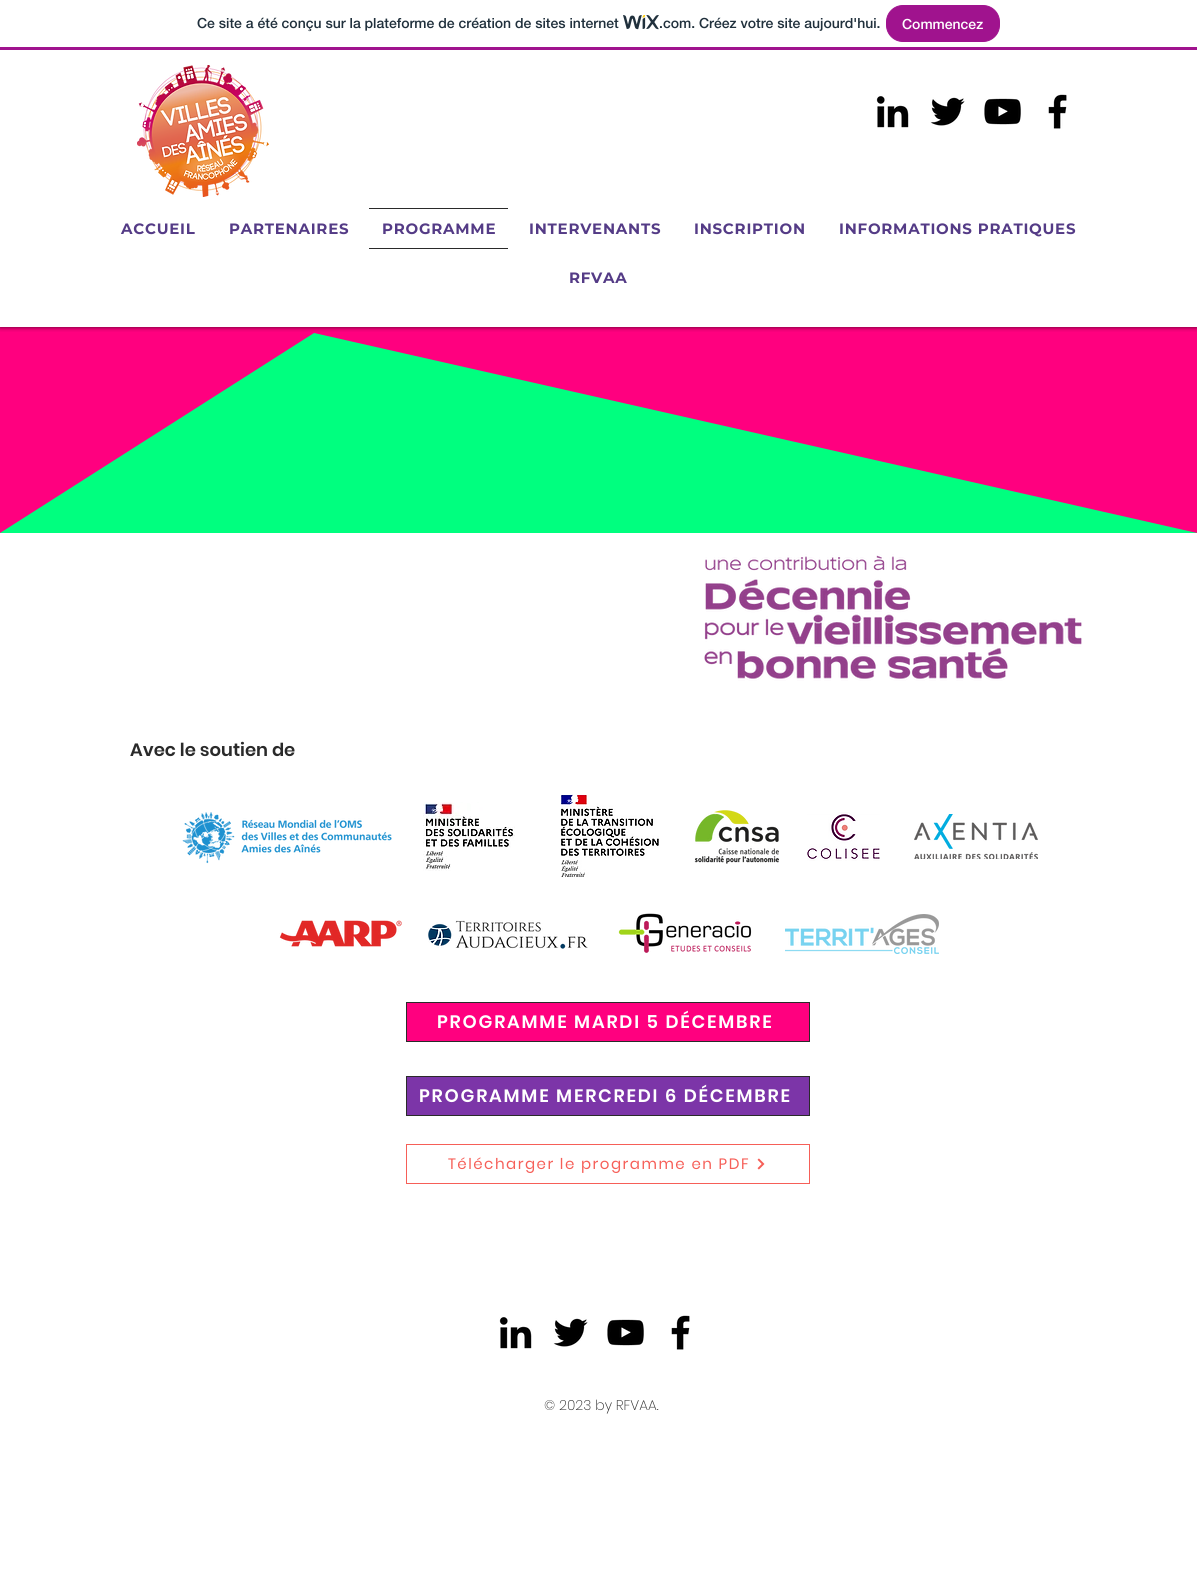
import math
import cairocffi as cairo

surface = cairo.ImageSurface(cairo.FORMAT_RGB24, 1197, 1596)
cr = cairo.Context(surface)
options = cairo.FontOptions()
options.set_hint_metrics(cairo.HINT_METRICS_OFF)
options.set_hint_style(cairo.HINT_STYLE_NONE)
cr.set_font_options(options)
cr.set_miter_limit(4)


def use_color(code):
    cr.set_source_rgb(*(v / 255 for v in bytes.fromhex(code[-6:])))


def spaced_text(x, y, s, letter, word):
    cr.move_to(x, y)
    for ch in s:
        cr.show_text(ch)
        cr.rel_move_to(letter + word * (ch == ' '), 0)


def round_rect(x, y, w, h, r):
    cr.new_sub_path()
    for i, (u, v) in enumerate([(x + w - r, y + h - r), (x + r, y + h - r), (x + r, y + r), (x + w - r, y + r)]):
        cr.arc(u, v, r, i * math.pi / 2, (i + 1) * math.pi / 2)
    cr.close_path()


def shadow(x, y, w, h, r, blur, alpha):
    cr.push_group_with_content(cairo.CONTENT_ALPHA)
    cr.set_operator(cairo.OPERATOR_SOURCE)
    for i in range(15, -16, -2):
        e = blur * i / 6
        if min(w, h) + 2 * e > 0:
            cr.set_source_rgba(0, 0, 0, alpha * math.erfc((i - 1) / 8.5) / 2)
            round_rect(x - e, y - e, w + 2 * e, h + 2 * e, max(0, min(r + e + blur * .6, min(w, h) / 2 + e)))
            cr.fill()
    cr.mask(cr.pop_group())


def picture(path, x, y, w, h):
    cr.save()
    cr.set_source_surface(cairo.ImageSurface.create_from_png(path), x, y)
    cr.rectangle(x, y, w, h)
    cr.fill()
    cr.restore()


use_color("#ffffff")
cr.paint()
use_color("#ff007f")
cr.rectangle(0, 327, 1197, 206)
cr.fill()
use_color("#00ff7f")
cr.new_path()
cr.move_to(0, 533)
cr.line_to(314, 333)
cr.line_to(1197, 533)
cr.close_path()
cr.fill()
cr.save()
cr.rectangle(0, 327, 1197, 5)
cr.clip()
use_color("#000000")
shadow(0, 50, 1197, 277, 0, 2.5, 0.7)
cr.restore()
use_color("#ffffff")
cr.rectangle(0, 45, 1197, 2)
cr.fill()
use_color("#a0138e")
cr.rectangle(0, 47, 1197, 3)
cr.fill()
cr.select_font_face("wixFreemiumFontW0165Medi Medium")
cr.set_font_size(14)
use_color("#20303c")
cr.move_to(197, 28)
cr.show_text("Ce site a été conçu sur la plateforme de création de sites internet")
picture("img1.png", 623, 15, 36, 15)
cr.move_to(659, 28)
cr.show_text(".com. Créez votre site aujourd'hui.")
use_color("#a0138e")
round_rect(886.5, 5.5, 113, 36, 16.5)
cr.fill_preserve()
cr.set_line_width(1)
cr.stroke()
use_color("#ffffff")
cr.move_to(902, 29)
cr.show_text("Commencez")
picture("img2.png", 137, 65, 132, 132)
picture("img3.png", 876, 96, 33, 32)
picture("img4.png", 930, 97, 35, 29)
picture("img5.png", 984, 98, 37, 27)
picture("img6.png", 1048, 94, 19, 35)
cr.select_font_face("Montserrat", cairo.FONT_SLANT_NORMAL, cairo.FONT_WEIGHT_BOLD)
cr.set_font_size(15)
use_color("#543b86")
spaced_text(121, 234, "ACCUEIL", 0.75, 0)
spaced_text(229, 234, "PARTENAIRES", 0.75, 0)
use_color("#2a2a2a")
cr.rectangle(369, 208, 139, 1)
cr.fill()
cr.rectangle(369, 248, 139, 1)
cr.fill()
use_color("#543b86")
spaced_text(382, 234, "PROGRAMME", 0.75, 0)
spaced_text(529, 234, "INTERVENANTS", 0.75, 0)
spaced_text(694, 234, "INSCRIPTION", 0.75, 0)
spaced_text(839, 234, "INFORMATIONS PRATIQUES", 0.75, 0)
spaced_text(569, 283, "RFVAA", 0.75, 0)
picture("img7.png", 704, 554, 378, 127)
cr.select_font_face("Poppins SemiBold")
cr.set_font_size(18)
use_color("#2a2a2a")
cr.move_to(130, 756)
cr.show_text("Avec le soutien de")
picture("img8.png", 182, 812, 210, 52)
picture("img9.png", 423, 802, 92, 69)
picture("img10.png", 561, 794, 98, 84)
picture("img11.png", 694, 810, 85, 54)
picture("img12.png", 807, 812, 73, 49)
picture("img13.png", 914, 814, 124, 45)
picture("img14.png", 279, 920, 123, 27)
picture("img15.png", 428, 920, 160, 29)
picture("img16.png", 618, 913, 134, 40)
picture("img17.png", 785, 914, 154, 40)
use_color("#ff007f")
cr.rectangle(406.5, 1002.5, 403, 39)
cr.fill_preserve()
use_color("#2a2a2a")
cr.stroke()
use_color("#ffffff")
spaced_text(437, 1028, "PROGRAMME MARDI 5 DÉCEMBRE", 1.8, 0)
use_color("#7c35a8")
cr.rectangle(406.5, 1076.5, 403, 39)
cr.fill_preserve()
use_color("#2a2a2a")
cr.stroke()
use_color("#ffffff")
spaced_text(419, 1102, "PROGRAMME MERCREDI 6 DÉCEMBRE", 1.8, 0)
cr.rectangle(406.5, 1144.5, 403, 39)
use_color("#f65f58")
cr.stroke()
cr.select_font_face("Poppins")
cr.set_font_size(15)
spaced_text(448, 1169, "Télécharger le programme en PDF", 1.5, 0)
picture("img18.png", 757, 1158, 8, 12)
picture("img3.png", 499, 1317, 33, 32)
picture("img4.png", 553, 1318, 35, 29)
picture("img5.png", 607, 1319, 37, 27)
picture("img6.png", 671, 1315, 19, 35)
cr.select_font_face("Poppins ExtraLight")
cr.set_font_size(14)
use_color("#2a2a2a")
cr.move_to(544, 1410)
cr.show_text("© 2023 by RFVAA.")
surface.write_to_png("result.png")
